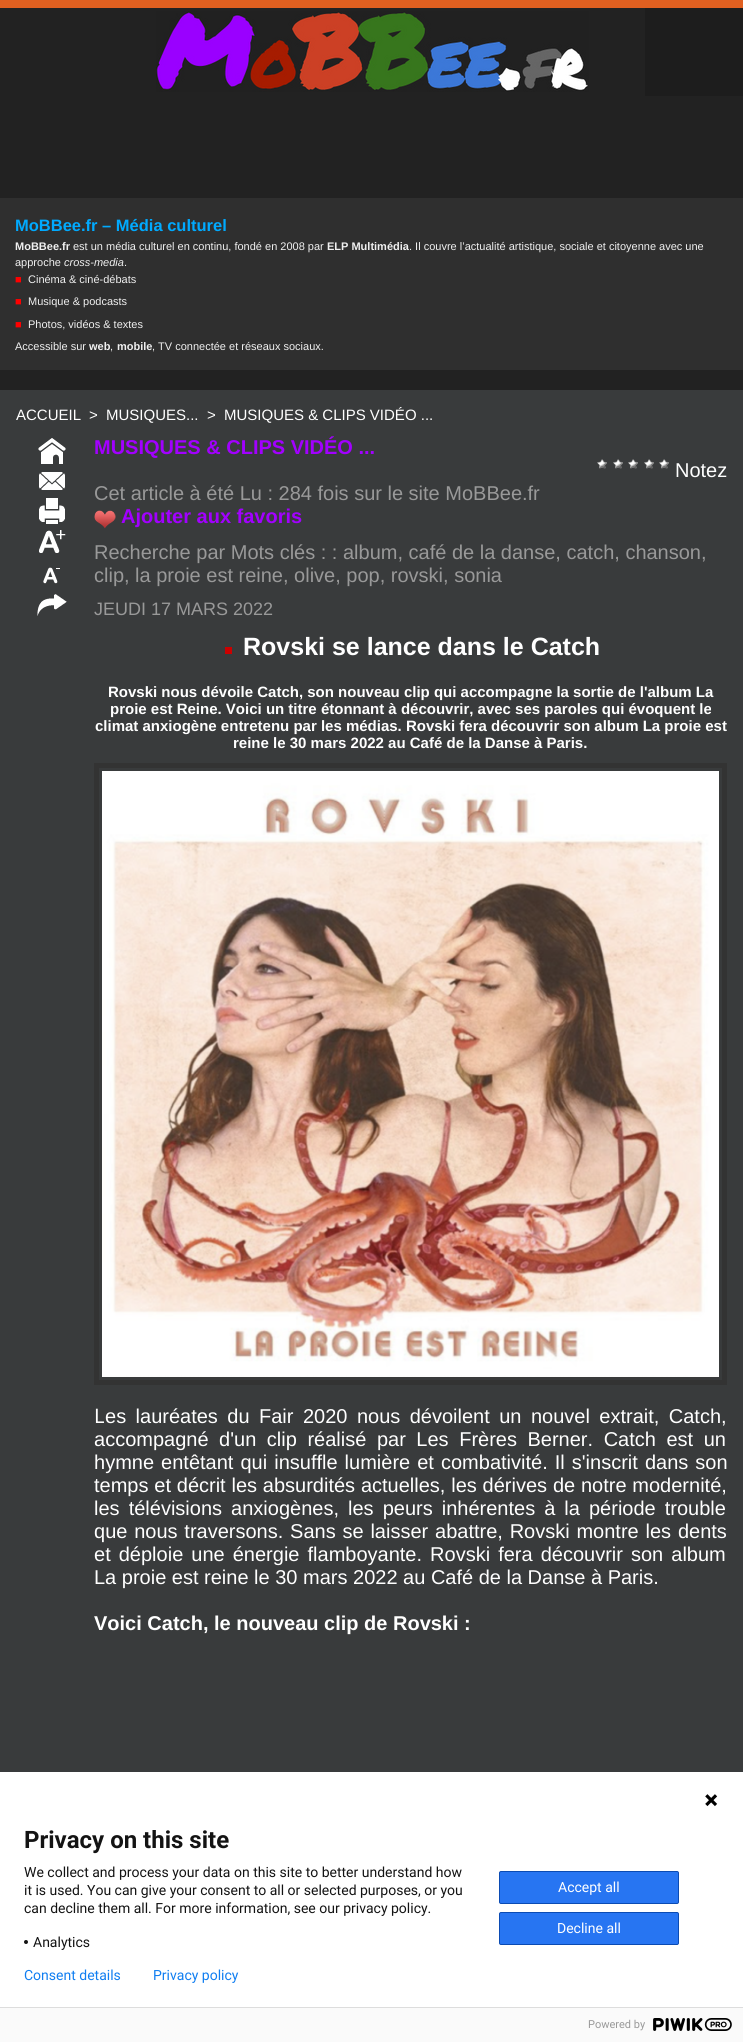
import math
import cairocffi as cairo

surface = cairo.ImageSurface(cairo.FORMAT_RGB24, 743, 2042)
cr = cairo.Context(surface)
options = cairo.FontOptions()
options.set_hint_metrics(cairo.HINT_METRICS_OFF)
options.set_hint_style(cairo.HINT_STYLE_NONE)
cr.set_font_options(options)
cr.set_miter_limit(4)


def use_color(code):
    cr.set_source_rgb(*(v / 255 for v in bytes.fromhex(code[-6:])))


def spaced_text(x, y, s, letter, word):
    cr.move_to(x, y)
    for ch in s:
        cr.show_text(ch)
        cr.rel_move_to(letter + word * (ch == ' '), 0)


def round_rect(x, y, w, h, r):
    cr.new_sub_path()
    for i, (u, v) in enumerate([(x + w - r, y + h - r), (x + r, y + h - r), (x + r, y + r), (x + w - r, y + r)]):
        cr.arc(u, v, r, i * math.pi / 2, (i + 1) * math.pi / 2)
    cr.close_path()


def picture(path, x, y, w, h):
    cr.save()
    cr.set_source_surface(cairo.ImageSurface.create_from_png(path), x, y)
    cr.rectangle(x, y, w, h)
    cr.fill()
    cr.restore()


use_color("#222222")
cr.paint()
use_color("#e16020")
cr.rectangle(0, 0, 743, 8)
cr.fill()
picture("img1.png", 156, 11, 433, 81)
use_color("#1d1d1d")
cr.rectangle(645, 8, 98, 88)
cr.fill()
use_color("#2f2f2f")
cr.rectangle(0, 198, 743, 172)
cr.fill()
cr.select_font_face("Liberation Sans", cairo.FONT_SLANT_NORMAL, cairo.FONT_WEIGHT_BOLD)
cr.set_font_size(16.5)
use_color("#00aaff")
cr.move_to(15, 231)
cr.show_text("MoBBee.fr – Média culturel")
cr.set_font_size(11)
use_color("#f0f0f0")
cr.move_to(15, 250)
cr.show_text("MoBBee.fr")
cr.select_font_face("Liberation Sans")
cr.move_to(73, 250)
cr.show_text("est un média culturel en continu, fondé en 2008 par")
cr.select_font_face("Liberation Sans", cairo.FONT_SLANT_NORMAL, cairo.FONT_WEIGHT_BOLD)
cr.move_to(327, 250)
cr.show_text("ELP Multimédia")
cr.select_font_face("Liberation Sans")
cr.move_to(409, 250)
cr.show_text(". Il couvre l’actualité artistique, sociale et citoyenne avec une")
cr.move_to(15, 266)
cr.show_text("approche")
cr.select_font_face("Liberation Sans", cairo.FONT_SLANT_ITALIC)
cr.move_to(64, 266)
cr.show_text("cross-media")
cr.select_font_face("Liberation Sans")
cr.move_to(124, 266)
cr.show_text(".")
use_color("#ff0000")
cr.move_to(15, 283)
cr.show_text("■")
use_color("#f0f0f0")
cr.move_to(28, 283)
cr.show_text("Cinéma & ciné-débats")
use_color("#ff0000")
cr.move_to(15, 305)
cr.show_text("■")
use_color("#f0f0f0")
cr.move_to(28, 305)
cr.show_text("Musique & podcasts")
use_color("#ff0000")
cr.move_to(15, 328)
cr.show_text("■")
use_color("#f0f0f0")
cr.move_to(28, 328)
cr.show_text("Photos, vidéos & textes")
cr.move_to(15, 350)
cr.show_text("Accessible sur")
cr.select_font_face("Liberation Sans", cairo.FONT_SLANT_NORMAL, cairo.FONT_WEIGHT_BOLD)
cr.move_to(89, 350)
cr.show_text("web")
cr.select_font_face("Liberation Sans")
cr.move_to(110, 350)
cr.show_text(",")
cr.select_font_face("Liberation Sans", cairo.FONT_SLANT_NORMAL, cairo.FONT_WEIGHT_BOLD)
cr.move_to(117, 350)
cr.show_text("mobile")
cr.select_font_face("Liberation Sans")
cr.move_to(152, 350)
cr.show_text(", TV connectée et réseaux sociaux.")
use_color("#393b3c")
cr.rectangle(0, 390, 743, 1382)
cr.fill()
cr.set_font_size(15)
use_color("#ffffff")
cr.move_to(16, 420)
cr.show_text("ACCUEIL")
cr.move_to(89, 420)
cr.show_text(">")
cr.move_to(106, 420)
cr.show_text("MUSIQUES...")
cr.move_to(207, 420)
cr.show_text(">")
cr.move_to(224, 420)
cr.show_text("MUSIQUES & CLIPS VIDÉO ...")
picture("img2.png", 38, 438, 28, 26)
picture("img3.png", 39, 472, 26, 18)
picture("img4.png", 39, 498, 26, 26)
picture("img5.png", 39, 530, 27, 23)
picture("img6.png", 43, 567, 17, 17)
picture("img7.png", 37, 594, 30, 22)
cr.select_font_face("Liberation Sans", cairo.FONT_SLANT_NORMAL, cairo.FONT_WEIGHT_BOLD)
cr.set_font_size(20)
use_color("#a200ff")
cr.move_to(94, 454)
cr.show_text("MUSIQUES & CLIPS VIDÉO ...")
picture("img8.png", 597, 459, 10, 10)
picture("img8.png", 613, 459, 10, 10)
picture("img8.png", 628, 459, 10, 10)
picture("img8.png", 644, 459, 10, 10)
picture("img8.png", 659, 459, 10, 10)
cr.select_font_face("Liberation Sans")
use_color("#ffffff")
cr.move_to(675, 477)
cr.show_text("Notez")
use_color("#999999")
cr.move_to(94, 500)
cr.show_text("Cet article à été Lu : 284 fois sur le site MoBBee.fr")
picture("img9.png", 94, 510, 22, 19)
cr.select_font_face("Liberation Sans", cairo.FONT_SLANT_NORMAL, cairo.FONT_WEIGHT_BOLD)
use_color("#a200ff")
cr.move_to(121, 523)
cr.show_text("Ajouter aux favoris")
cr.select_font_face("Liberation Sans")
use_color("#999999")
cr.move_to(94, 559)
cr.show_text("Recherche par Mots clés : : album, café de la danse, catch, chanson,")
cr.move_to(94, 582)
cr.show_text("clip, la proie est reine, olive, pop, rovski, sonia")
cr.set_font_size(18)
cr.move_to(94, 615)
cr.show_text("JEUDI 17 MARS 2022")
use_color("#cc0000")
cr.rectangle(225, 647, 7, 7)
cr.fill()
cr.select_font_face("Liberation Sans", cairo.FONT_SLANT_NORMAL, cairo.FONT_WEIGHT_BOLD)
cr.set_font_size(25)
use_color("#ffffff")
cr.move_to(243, 655)
cr.show_text("Rovski se lance dans le Catch")
cr.set_font_size(15)
cr.move_to(108, 697)
cr.show_text("Rovski nous dévoile Catch, son nouveau clip qui accompagne la sortie de l'album La")
cr.move_to(110, 714)
cr.show_text("proie est Reine. Voici un titre étonnant à découvrir, avec ses paroles qui évoquent le")
cr.move_to(95, 731)
cr.show_text("climat anxiogène entretenu par les médias. Rovski fera découvrir son album La proie est")
cr.move_to(233, 748)
cr.show_text("reine le 30 mars 2022 au Café de la Danse à Paris.")
cr.rectangle(96.5, 765.5, 628, 617)
use_color("#333333")
cr.set_line_width(5)
cr.stroke()
picture("img10.png", 102, 771, 617, 606)
cr.select_font_face("Noto Sans")
cr.set_font_size(20)
use_color("#ffffff")
cr.move_to(94, 1423)
cr.show_text("L")
cr.select_font_face("Liberation Sans")
spaced_text(105, 1423, "es lauréates du Fair 2020 nous dévoilent un nouvel extrait, Catch,", 0, 3.9)
spaced_text(94, 1446, "accompagné d'un clip réalisé par Les Frères Berner. Catch est un", 0, 5)
spaced_text(94, 1469, "hymne entêtant qui insuffle lumière et combativité. Il s'inscrit dans son", 0, 1.5)
spaced_text(94, 1492, "temps et décrit les absurdités actuelles, les dérives de notre modernité,", 0, 0.25)
spaced_text(94, 1515, "les télévisions anxiogènes, les peurs inhérentes à la période trouble", 0, 3.5)
spaced_text(94, 1538, "que nous traversons. Sans se laisser abattre, Rovski montre les dents", 0, 1.25)
spaced_text(94, 1561, "et déploie une énergie flamboyante. Rovski fera découvrir son album", 0, 2.5)
cr.move_to(94, 1584)
cr.show_text("La proie est reine le 30 mars 2022 au Café de la Danse à Paris.")
cr.select_font_face("Liberation Sans", cairo.FONT_SLANT_NORMAL, cairo.FONT_WEIGHT_BOLD)
cr.move_to(94, 1630)
cr.show_text("Voici Catch, le nouveau clip de Rovski :")
cr.rectangle(0, 1772, 743, 235)
cr.fill()
picture("img11.png", 705, 1794, 13, 13)
cr.select_font_face("Roboto", cairo.FONT_SLANT_NORMAL, cairo.FONT_WEIGHT_BOLD)
cr.set_font_size(24)
use_color("#131313")
cr.move_to(24, 1848)
cr.show_text("Privacy on this site")
cr.select_font_face("Roboto")
cr.set_font_size(14)
cr.move_to(24, 1877)
cr.show_text("We collect and process your data on this site to better understand how")
cr.move_to(24, 1895)
cr.show_text("it is used. You can give your consent to all or selected purposes, or you")
cr.move_to(24, 1913)
cr.show_text("can decline them all. For more information, see our privacy policy.")
cr.new_path()
cr.arc(26, 1942, 2, 0, 2 * math.pi)
cr.fill()
cr.move_to(33, 1947)
cr.show_text("Analytics")
use_color("#2775f2")
round_rect(499.5, 1871.5, 179, 32, 1.5)
cr.fill_preserve()
use_color("#0b4bb3")
cr.set_line_width(1)
cr.stroke()
use_color("#ffffff")
cr.move_to(558, 1892)
cr.show_text("Accept all")
use_color("#2775f2")
round_rect(499.5, 1912.5, 179, 32, 1.5)
cr.fill_preserve()
use_color("#0b4bb3")
cr.stroke()
use_color("#ffffff")
cr.move_to(557, 1933)
cr.show_text("Decline all")
use_color("#107ef1")
cr.move_to(24, 1980)
cr.show_text("Consent details")
cr.move_to(153, 1980)
cr.show_text("Privacy policy")
use_color("#fafafa")
cr.rectangle(0, 2008, 743, 34)
cr.fill()
use_color("#dddddd")
cr.rectangle(0, 2007, 743, 1)
cr.fill()
cr.set_font_size(11)
use_color("#999999")
cr.move_to(588, 2028)
cr.show_text("Powered by")
picture("img12.png", 653, 2018, 79, 13)
surface.write_to_png("result.png")
